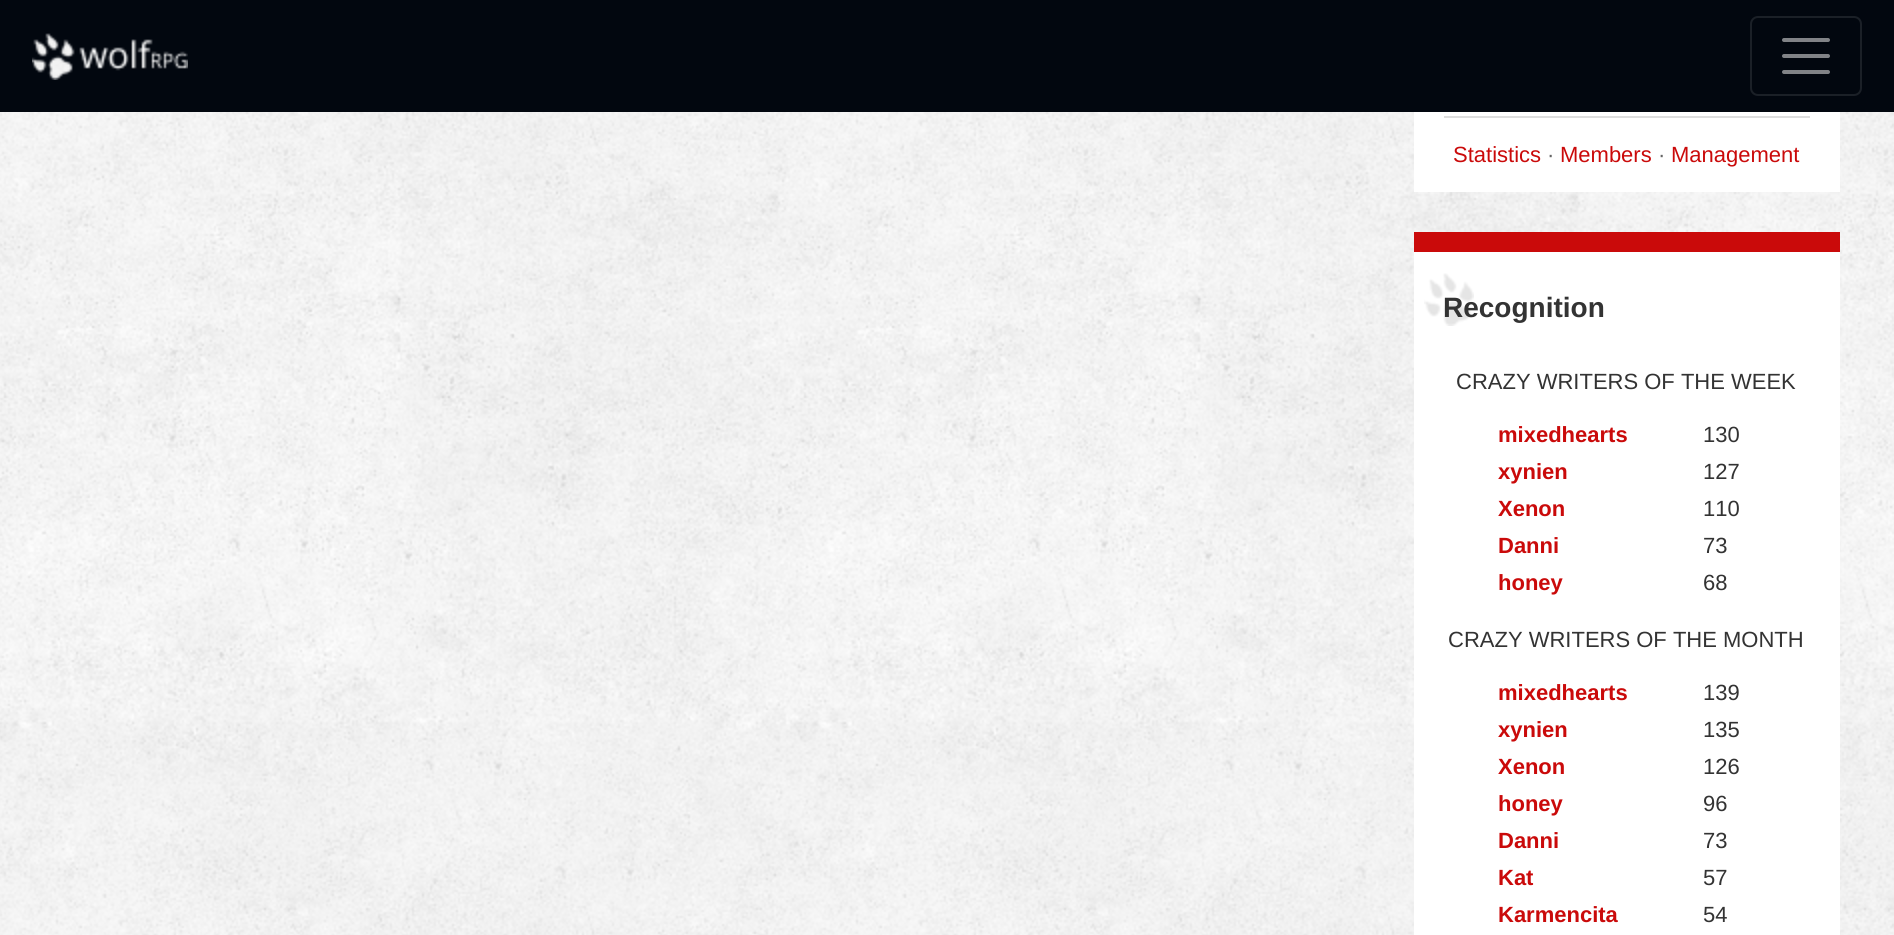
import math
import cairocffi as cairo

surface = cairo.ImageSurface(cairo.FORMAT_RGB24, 1894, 935)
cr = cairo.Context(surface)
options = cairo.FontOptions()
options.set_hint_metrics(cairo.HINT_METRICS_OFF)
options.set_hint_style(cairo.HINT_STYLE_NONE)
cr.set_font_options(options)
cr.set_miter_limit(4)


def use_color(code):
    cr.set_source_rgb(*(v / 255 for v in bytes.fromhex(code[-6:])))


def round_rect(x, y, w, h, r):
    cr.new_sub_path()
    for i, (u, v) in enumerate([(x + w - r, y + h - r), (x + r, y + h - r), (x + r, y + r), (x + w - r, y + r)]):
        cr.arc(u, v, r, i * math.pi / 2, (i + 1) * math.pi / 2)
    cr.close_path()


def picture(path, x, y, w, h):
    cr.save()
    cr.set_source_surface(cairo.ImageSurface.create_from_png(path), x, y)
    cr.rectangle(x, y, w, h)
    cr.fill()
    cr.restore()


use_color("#ffffff")
cr.paint()
picture("img1.png", 0, 112, 1894, 823)
use_color("#02070f")
cr.rectangle(0, 0, 1894, 112)
cr.fill()
picture("img2.png", 32, 33, 156, 47)
round_rect(1751, 17, 110, 78, 7)
use_color("#1b2027")
cr.stroke()
cr.new_path()
cr.move_to(1784, 40)
cr.line_to(1828, 40)
cr.move_to(1784, 56)
cr.line_to(1828, 56)
cr.move_to(1784, 72)
cr.line_to(1828, 72)
use_color("#818387")
cr.set_line_width(4)
cr.set_line_cap(cairo.LINE_CAP_ROUND)
cr.stroke()
use_color("#ffffff")
cr.rectangle(1414, 112, 426, 80)
cr.fill()
use_color("#dddddd")
cr.rectangle(1444, 116, 366, 2)
cr.fill()
cr.select_font_face("Liberation Sans")
cr.set_font_size(22)
use_color("#ca0a0a")
cr.move_to(1453, 162)
cr.show_text("Statistics")
use_color("#656565")
cr.move_to(1547, 162)
cr.show_text("·")
use_color("#ca0a0a")
cr.move_to(1560, 162)
cr.show_text("Members")
use_color("#656565")
cr.move_to(1658, 162)
cr.show_text("·")
use_color("#ca0a0a")
cr.move_to(1671, 162)
cr.show_text("Management")
use_color("#ffffff")
cr.rectangle(1414, 252, 426, 683)
cr.fill()
picture("img3.png", 1424, 273, 50, 53)
use_color("#ca0a0a")
cr.rectangle(1414, 232, 426, 20)
cr.fill()
cr.select_font_face("Liberation Sans", cairo.FONT_SLANT_NORMAL, cairo.FONT_WEIGHT_BOLD)
cr.set_font_size(28)
use_color("#333333")
cr.move_to(1443, 317)
cr.show_text("Recognition")
cr.select_font_face("Liberation Sans")
cr.set_font_size(22)
cr.move_to(1456, 389)
cr.show_text("CRAZY WRITERS OF THE WEEK")
cr.select_font_face("Liberation Sans", cairo.FONT_SLANT_NORMAL, cairo.FONT_WEIGHT_BOLD)
use_color("#ca0a0a")
cr.move_to(1498, 442)
cr.show_text("mixedhearts")
cr.select_font_face("Liberation Sans")
use_color("#333333")
cr.move_to(1703, 442)
cr.show_text("130")
cr.select_font_face("Liberation Sans", cairo.FONT_SLANT_NORMAL, cairo.FONT_WEIGHT_BOLD)
use_color("#ca0a0a")
cr.move_to(1498, 479)
cr.show_text("xynien")
cr.select_font_face("Liberation Sans")
use_color("#333333")
cr.move_to(1703, 479)
cr.show_text("127")
cr.select_font_face("Liberation Sans", cairo.FONT_SLANT_NORMAL, cairo.FONT_WEIGHT_BOLD)
use_color("#ca0a0a")
cr.move_to(1498, 516)
cr.show_text("Xenon")
cr.select_font_face("Liberation Sans")
use_color("#333333")
cr.move_to(1703, 516)
cr.show_text("110")
cr.select_font_face("Liberation Sans", cairo.FONT_SLANT_NORMAL, cairo.FONT_WEIGHT_BOLD)
use_color("#ca0a0a")
cr.move_to(1498, 553)
cr.show_text("Danni")
cr.select_font_face("Liberation Sans")
use_color("#333333")
cr.move_to(1703, 553)
cr.show_text("73")
cr.select_font_face("Liberation Sans", cairo.FONT_SLANT_NORMAL, cairo.FONT_WEIGHT_BOLD)
use_color("#ca0a0a")
cr.move_to(1498, 590)
cr.show_text("honey")
cr.select_font_face("Liberation Sans")
use_color("#333333")
cr.move_to(1703, 590)
cr.show_text("68")
cr.move_to(1448, 647)
cr.show_text("CRAZY WRITERS OF THE MONTH")
cr.select_font_face("Liberation Sans", cairo.FONT_SLANT_NORMAL, cairo.FONT_WEIGHT_BOLD)
use_color("#ca0a0a")
cr.move_to(1498, 700)
cr.show_text("mixedhearts")
cr.select_font_face("Liberation Sans")
use_color("#333333")
cr.move_to(1703, 700)
cr.show_text("139")
cr.select_font_face("Liberation Sans", cairo.FONT_SLANT_NORMAL, cairo.FONT_WEIGHT_BOLD)
use_color("#ca0a0a")
cr.move_to(1498, 737)
cr.show_text("xynien")
cr.select_font_face("Liberation Sans")
use_color("#333333")
cr.move_to(1703, 737)
cr.show_text("135")
cr.select_font_face("Liberation Sans", cairo.FONT_SLANT_NORMAL, cairo.FONT_WEIGHT_BOLD)
use_color("#ca0a0a")
cr.move_to(1498, 774)
cr.show_text("Xenon")
cr.select_font_face("Liberation Sans")
use_color("#333333")
cr.move_to(1703, 774)
cr.show_text("126")
cr.select_font_face("Liberation Sans", cairo.FONT_SLANT_NORMAL, cairo.FONT_WEIGHT_BOLD)
use_color("#ca0a0a")
cr.move_to(1498, 811)
cr.show_text("honey")
cr.select_font_face("Liberation Sans")
use_color("#333333")
cr.move_to(1703, 811)
cr.show_text("96")
cr.select_font_face("Liberation Sans", cairo.FONT_SLANT_NORMAL, cairo.FONT_WEIGHT_BOLD)
use_color("#ca0a0a")
cr.move_to(1498, 848)
cr.show_text("Danni")
cr.select_font_face("Liberation Sans")
use_color("#333333")
cr.move_to(1703, 848)
cr.show_text("73")
cr.select_font_face("Liberation Sans", cairo.FONT_SLANT_NORMAL, cairo.FONT_WEIGHT_BOLD)
use_color("#ca0a0a")
cr.move_to(1498, 885)
cr.show_text("Kat")
cr.select_font_face("Liberation Sans")
use_color("#333333")
cr.move_to(1703, 885)
cr.show_text("57")
cr.select_font_face("Liberation Sans", cairo.FONT_SLANT_NORMAL, cairo.FONT_WEIGHT_BOLD)
use_color("#ca0a0a")
cr.move_to(1498, 922)
cr.show_text("Karmencita")
cr.select_font_face("Liberation Sans")
use_color("#333333")
cr.move_to(1703, 922)
cr.show_text("54")
surface.write_to_png("result.png")
